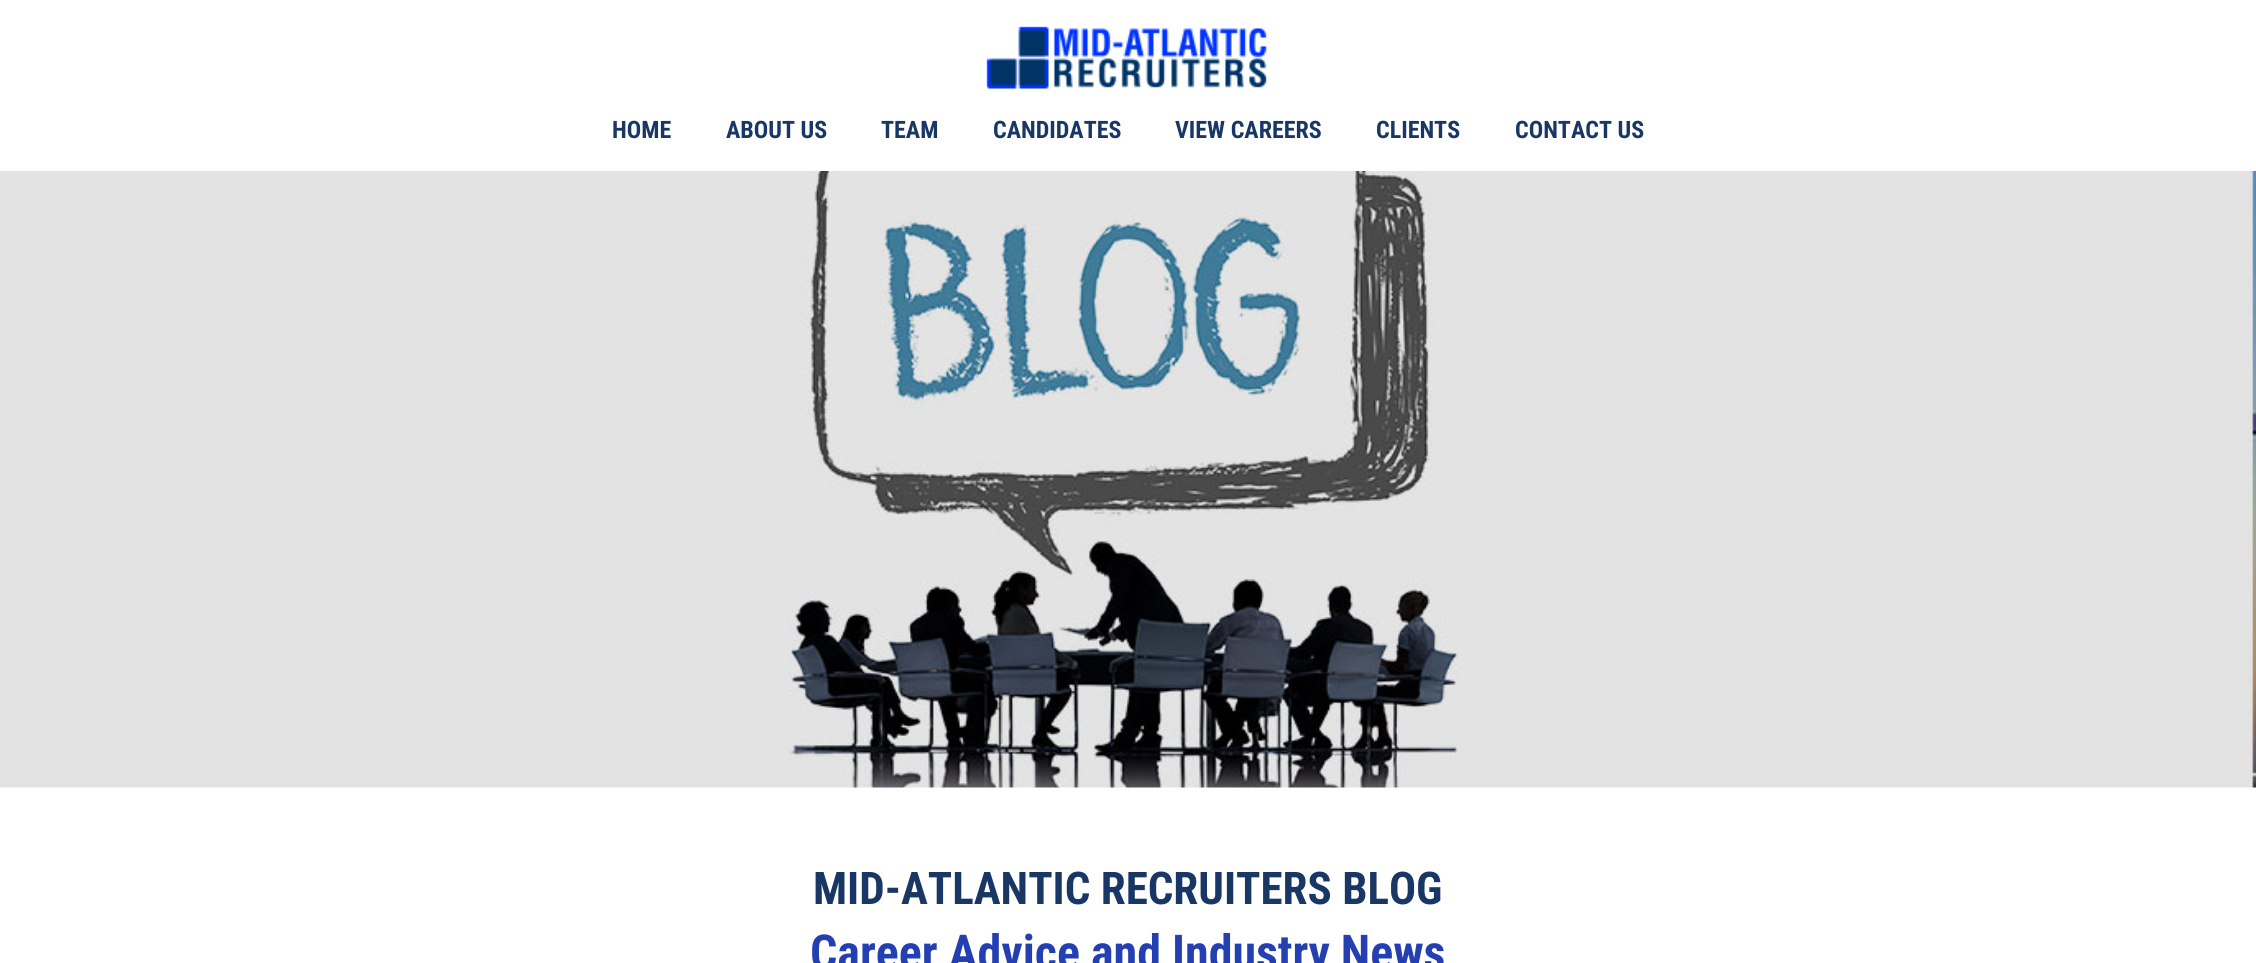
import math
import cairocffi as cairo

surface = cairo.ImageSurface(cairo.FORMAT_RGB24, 2256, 963)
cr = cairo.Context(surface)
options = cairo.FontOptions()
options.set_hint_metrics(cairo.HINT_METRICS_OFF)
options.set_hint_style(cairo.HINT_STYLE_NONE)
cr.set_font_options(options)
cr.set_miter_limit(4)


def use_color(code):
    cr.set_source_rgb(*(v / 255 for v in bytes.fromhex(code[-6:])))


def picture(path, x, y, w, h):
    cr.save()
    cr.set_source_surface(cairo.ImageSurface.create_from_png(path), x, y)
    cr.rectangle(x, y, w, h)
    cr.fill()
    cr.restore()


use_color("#ffffff")
cr.paint()
picture("img1.png", 986, 26, 281, 63)
cr.select_font_face("Roboto Condensed", cairo.FONT_SLANT_NORMAL, cairo.FONT_WEIGHT_BOLD)
cr.set_font_size(24)
use_color("#193765")
cr.move_to(612, 138)
cr.show_text("HOME")
cr.move_to(726, 138)
cr.show_text("ABOUT US")
cr.move_to(881, 138)
cr.show_text("TEAM")
cr.move_to(993, 138)
cr.show_text("CANDIDATES")
cr.move_to(1175, 138)
cr.show_text("VIEW CAREERS")
cr.move_to(1376, 138)
cr.show_text("CLIENTS")
cr.move_to(1515, 138)
cr.show_text("CONTACT US")
picture("img2.png", 0, 171, 2256, 617)
cr.set_font_size(45)
cr.move_to(813, 904)
cr.show_text("MID-ATLANTIC RECRUITERS BLOG")
cr.set_font_size(48)
use_color("#243fb2")
cr.move_to(810, 969)
cr.show_text("Career Advice and Industry News")
surface.write_to_png("result.png")
